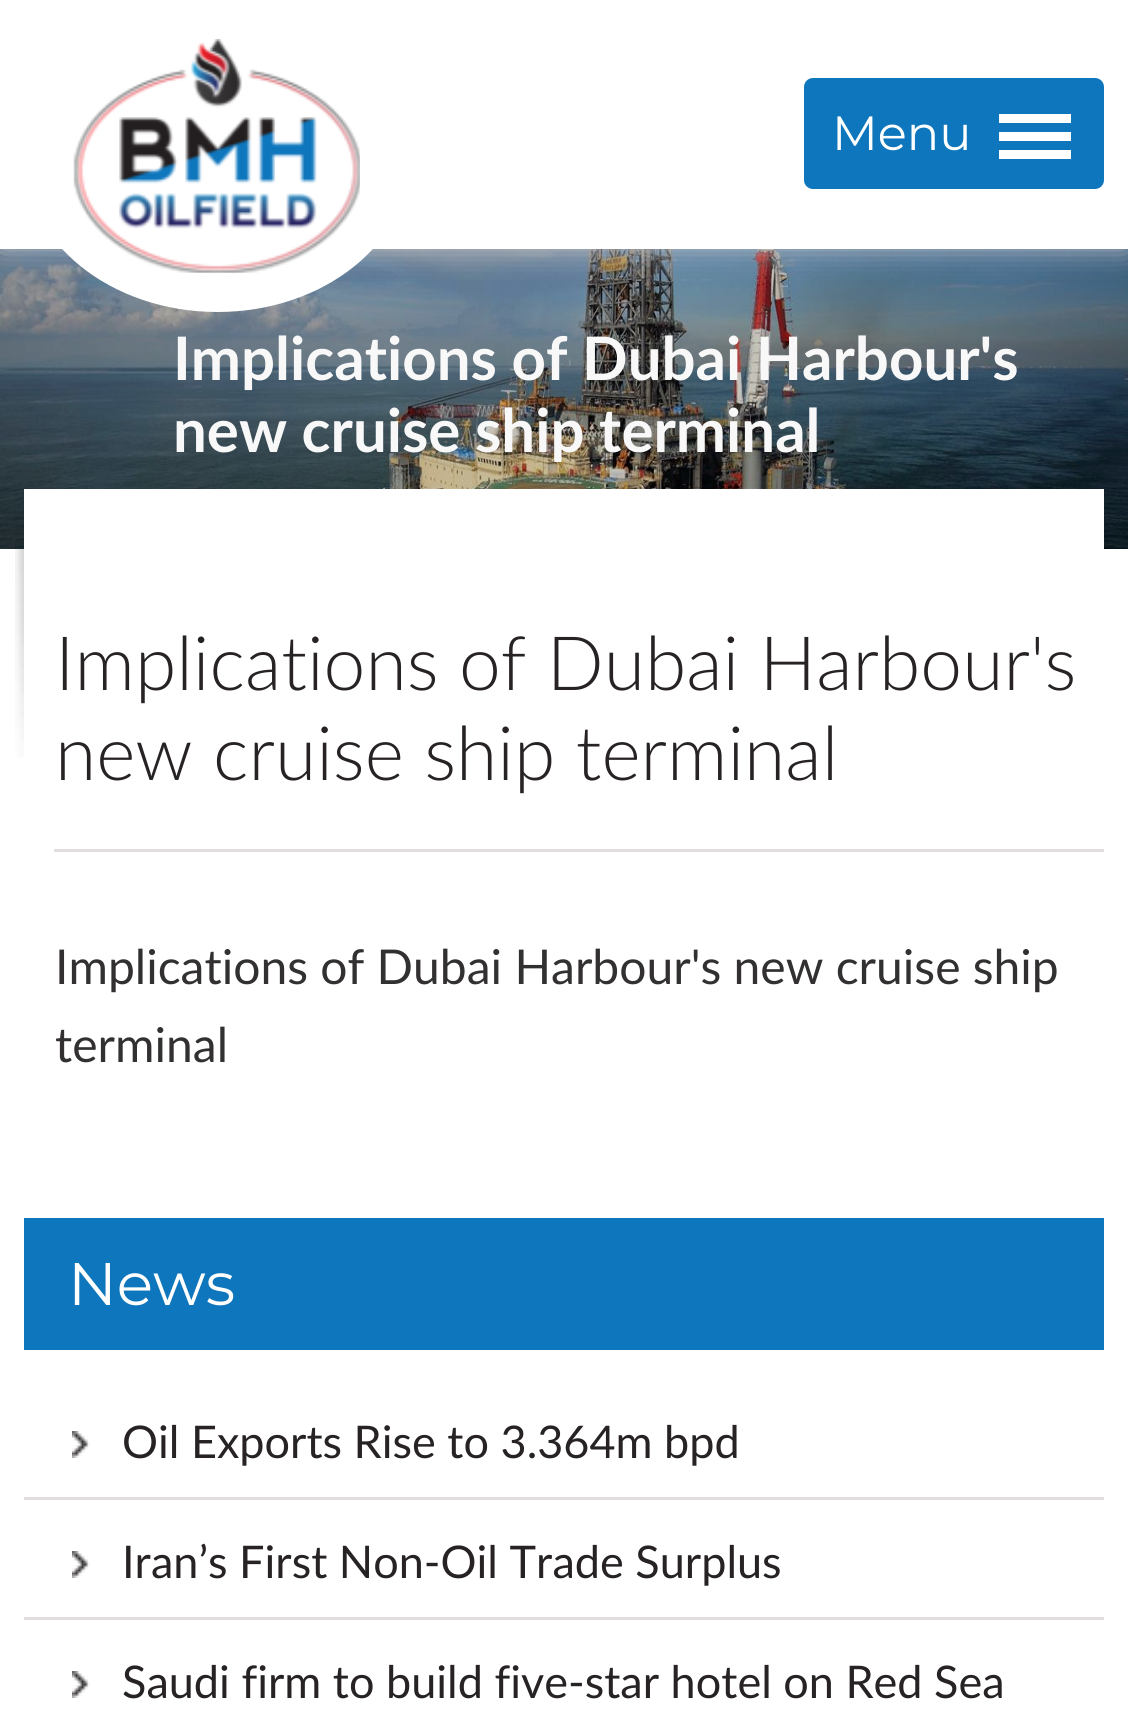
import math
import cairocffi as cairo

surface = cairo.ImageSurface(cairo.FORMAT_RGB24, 1128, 1720)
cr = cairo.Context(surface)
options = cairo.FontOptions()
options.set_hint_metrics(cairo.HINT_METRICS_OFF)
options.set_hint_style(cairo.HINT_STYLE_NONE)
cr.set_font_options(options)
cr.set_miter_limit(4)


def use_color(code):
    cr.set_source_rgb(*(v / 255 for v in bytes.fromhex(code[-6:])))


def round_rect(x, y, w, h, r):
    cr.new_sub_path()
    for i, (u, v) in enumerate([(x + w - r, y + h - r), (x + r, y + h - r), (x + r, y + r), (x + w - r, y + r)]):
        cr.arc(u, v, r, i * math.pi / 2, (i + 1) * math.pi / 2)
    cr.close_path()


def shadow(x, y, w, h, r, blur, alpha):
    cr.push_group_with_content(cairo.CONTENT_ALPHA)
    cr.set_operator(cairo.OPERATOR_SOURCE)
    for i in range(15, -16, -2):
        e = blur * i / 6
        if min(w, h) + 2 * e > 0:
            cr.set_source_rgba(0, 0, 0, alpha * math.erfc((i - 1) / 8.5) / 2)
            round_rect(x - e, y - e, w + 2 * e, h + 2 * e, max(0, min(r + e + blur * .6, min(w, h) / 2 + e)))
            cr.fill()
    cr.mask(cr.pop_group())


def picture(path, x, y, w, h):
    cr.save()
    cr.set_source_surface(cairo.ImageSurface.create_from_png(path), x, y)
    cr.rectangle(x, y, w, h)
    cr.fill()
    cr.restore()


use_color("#ffffff")
cr.paint()
picture("img2.png", 0, 249, 1128, 300)
cr.save()
cr.rectangle(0, 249, 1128, 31)
cr.clip()
use_color("#c5c5c5")
shadow(0, 0, 1128, 249, 0, 15, 1)
cr.restore()
use_color("#ffffff")
cr.new_path()
cr.move_to(217.5, 0)
cr.curve_to(324.5, 0, 411, 70, 411, 156)
cr.curve_to(411, 242, 324.5, 312, 217.5, 312)
cr.curve_to(110.5, 312, 24, 242, 24, 156)
cr.curve_to(24, 70, 110.5, 0, 217.5, 0)
cr.close_path()
cr.fill()
picture("img1.png", 73, 39, 287, 234)
use_color("#0e76bc")
round_rect(805.5, 79.5, 297, 108, 7.5)
cr.fill_preserve()
cr.set_line_width(3)
cr.stroke()
cr.select_font_face("Montserrat")
cr.set_font_size(48)
use_color("#ffffff")
cr.move_to(832, 150)
cr.show_text("Menu")
cr.rectangle(999, 114, 72, 9)
cr.fill()
cr.rectangle(999, 132, 72, 9)
cr.fill()
cr.rectangle(999, 150, 72, 9)
cr.fill()
cr.select_font_face("Lato", cairo.FONT_SLANT_NORMAL, cairo.FONT_WEIGHT_BOLD)
cr.set_font_size(60)
use_color("#f8f8f8")
cr.move_to(173, 380)
cr.show_text("Implications of Dubai Harbour's")
cr.move_to(173, 452)
cr.show_text("new cruise ship terminal")
use_color("#ffffff")
cr.rectangle(24, 489, 1080, 60)
cr.fill()
picture("img3.png", 15, 549, 9, 208)
use_color("#e2dede")
cr.rectangle(54, 849, 1050, 3)
cr.fill()
cr.select_font_face("Lato Light")
cr.set_font_size(75)
use_color("#272324")
cr.move_to(55, 690)
cr.show_text("Implications of Dubai Harbour's")
cr.move_to(55, 780)
cr.show_text("new cruise ship terminal")
cr.select_font_face("Lato")
cr.set_font_size(48)
use_color("#323031")
cr.move_to(55, 984)
cr.show_text("Implications of Dubai Harbour's new cruise ship")
cr.move_to(55, 1062)
cr.show_text("terminal")
use_color("#0e76bc")
cr.rectangle(24, 1218, 1080, 132)
cr.fill()
cr.select_font_face("Montserrat")
cr.set_font_size(60)
use_color("#ffffff")
cr.move_to(68, 1305)
cr.show_text("News")
use_color("#e2dede")
cr.rectangle(24, 1497, 1080, 3)
cr.fill()
picture("img4.png", 72, 1431, 18, 27)
cr.select_font_face("Lato")
cr.set_font_size(45)
use_color("#272324")
cr.move_to(122, 1458)
cr.show_text("Oil Exports Rise to 3.364m bpd")
use_color("#e2dede")
cr.rectangle(24, 1617, 1080, 3)
cr.fill()
picture("img4.png", 72, 1551, 18, 27)
use_color("#272324")
cr.move_to(122, 1578)
cr.show_text("Iran’s First Non-Oil Trade Surplus")
picture("img4.png", 72, 1671, 18, 27)
cr.move_to(122, 1698)
cr.show_text("Saudi firm to build five-star hotel on Red Sea")
surface.write_to_png("result.png")
